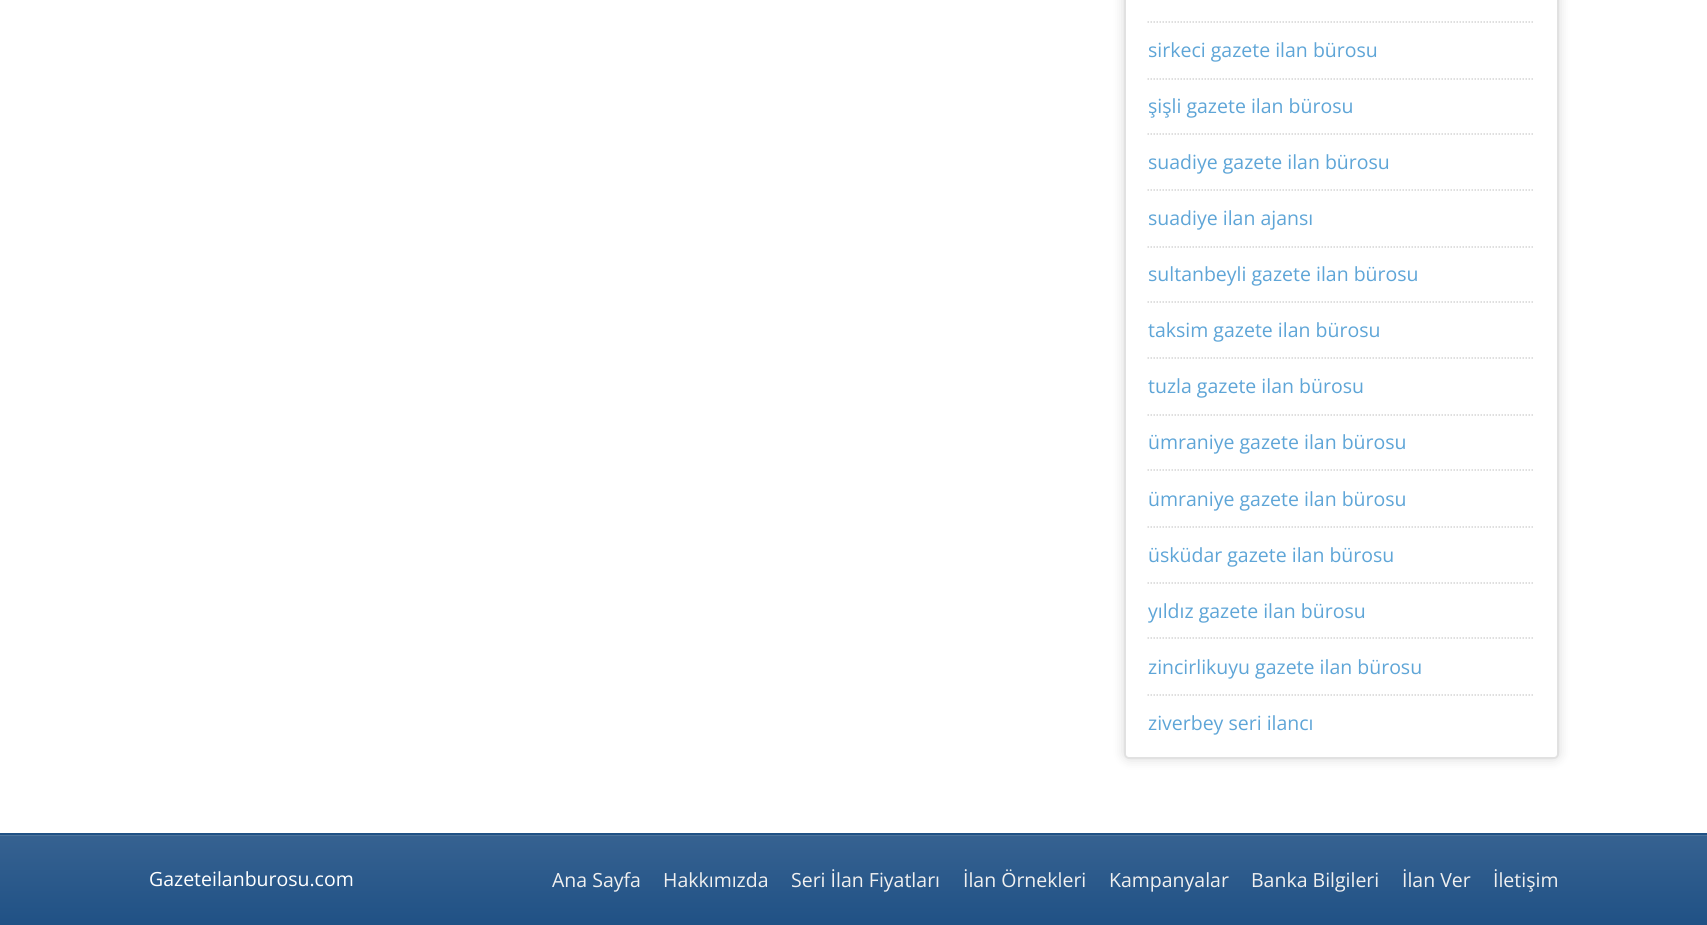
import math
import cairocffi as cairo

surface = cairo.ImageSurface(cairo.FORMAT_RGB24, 1707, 925)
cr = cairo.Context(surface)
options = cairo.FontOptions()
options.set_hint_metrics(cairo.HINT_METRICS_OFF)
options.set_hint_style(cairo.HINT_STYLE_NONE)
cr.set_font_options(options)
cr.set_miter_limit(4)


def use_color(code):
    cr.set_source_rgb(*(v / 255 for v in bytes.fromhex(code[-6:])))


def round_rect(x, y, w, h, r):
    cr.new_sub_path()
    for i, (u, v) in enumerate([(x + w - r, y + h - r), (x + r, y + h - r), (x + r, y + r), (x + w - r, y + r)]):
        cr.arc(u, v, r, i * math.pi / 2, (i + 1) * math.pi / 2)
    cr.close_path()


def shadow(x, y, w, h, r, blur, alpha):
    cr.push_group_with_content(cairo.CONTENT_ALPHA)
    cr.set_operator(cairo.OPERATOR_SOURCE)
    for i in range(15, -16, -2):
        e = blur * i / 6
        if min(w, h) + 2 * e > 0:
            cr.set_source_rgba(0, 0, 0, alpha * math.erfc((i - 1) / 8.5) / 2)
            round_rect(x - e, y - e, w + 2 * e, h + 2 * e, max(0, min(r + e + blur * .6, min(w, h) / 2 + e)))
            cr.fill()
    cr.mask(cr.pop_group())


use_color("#ffffff")
cr.paint()
use_color("#000000")
shadow(1124, -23, 435, 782, 5, 6, 0.15)
use_color("#ffffff")
round_rect(1125, -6, 433, 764, 4)
cr.fill_preserve()
use_color("#e1e1e1")
cr.stroke()
cr.new_path()
cr.move_to(1147.5, 22)
cr.line_to(1534.5, 22)
use_color("#d4d4d4")
cr.set_line_width(1.5)
cr.set_dash([1.5, 1.5])
cr.stroke()
cr.new_path()
cr.move_to(1147.5, 79)
cr.line_to(1534.5, 79)
cr.stroke()
cr.select_font_face("Open Sans")
cr.set_font_size(19.5)
use_color("#5ea5d7")
cr.move_to(1148, 57)
cr.show_text("sirkeci gazete ilan bürosu")
cr.new_path()
cr.move_to(1147.5, 134)
cr.line_to(1534.5, 134)
use_color("#d4d4d4")
cr.stroke()
use_color("#5ea5d7")
cr.move_to(1148, 113)
cr.show_text("şişli gazete ilan bürosu")
cr.new_path()
cr.move_to(1147.5, 190)
cr.line_to(1534.5, 190)
use_color("#d4d4d4")
cr.stroke()
use_color("#5ea5d7")
cr.move_to(1148, 169)
cr.show_text("suadiye gazete ilan bürosu")
cr.new_path()
cr.move_to(1147.5, 247)
cr.line_to(1534.5, 247)
use_color("#d4d4d4")
cr.stroke()
use_color("#5ea5d7")
cr.move_to(1148, 225)
cr.show_text("suadiye ilan ajansı")
cr.new_path()
cr.move_to(1147.5, 302)
cr.line_to(1534.5, 302)
use_color("#d4d4d4")
cr.stroke()
use_color("#5ea5d7")
cr.move_to(1148, 281)
cr.show_text("sultanbeyli gazete ilan bürosu")
cr.new_path()
cr.move_to(1147.5, 358)
cr.line_to(1534.5, 358)
use_color("#d4d4d4")
cr.stroke()
use_color("#5ea5d7")
cr.move_to(1148, 337)
cr.show_text("taksim gazete ilan bürosu")
cr.new_path()
cr.move_to(1147.5, 415)
cr.line_to(1534.5, 415)
use_color("#d4d4d4")
cr.stroke()
use_color("#5ea5d7")
cr.move_to(1148, 393)
cr.show_text("tuzla gazete ilan bürosu")
cr.new_path()
cr.move_to(1147.5, 470)
cr.line_to(1534.5, 470)
use_color("#d4d4d4")
cr.stroke()
use_color("#5ea5d7")
cr.move_to(1148, 449)
cr.show_text("ümraniye gazete ilan bürosu")
cr.new_path()
cr.move_to(1147.5, 527)
cr.line_to(1534.5, 527)
use_color("#d4d4d4")
cr.stroke()
use_color("#5ea5d7")
cr.move_to(1148, 506)
cr.show_text("ümraniye gazete ilan bürosu")
cr.new_path()
cr.move_to(1147.5, 583)
cr.line_to(1534.5, 583)
use_color("#d4d4d4")
cr.stroke()
use_color("#5ea5d7")
cr.move_to(1148, 562)
cr.show_text("üsküdar gazete ilan bürosu")
cr.new_path()
cr.move_to(1147.5, 638)
cr.line_to(1534.5, 638)
use_color("#d4d4d4")
cr.stroke()
use_color("#5ea5d7")
cr.move_to(1148, 618)
cr.show_text("yıldız gazete ilan bürosu")
cr.new_path()
cr.move_to(1147.5, 695)
cr.line_to(1534.5, 695)
use_color("#d4d4d4")
cr.stroke()
use_color("#5ea5d7")
cr.move_to(1148, 674)
cr.show_text("zincirlikuyu gazete ilan bürosu")
cr.move_to(1148, 730)
cr.show_text("ziverbey seri ilancı")
gradient = cairo.LinearGradient(854, 835, 854, 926)
gradient.add_color_stop_rgba(0, 0.212, 0.384, 0.569, 1)
gradient.add_color_stop_rgba(1, 0.125, 0.318, 0.522, 1)
cr.set_source(gradient)
cr.rectangle(0, 836, 1707, 89)
cr.fill()
use_color("#4d749d")
cr.rectangle(0, 835, 1707, 1)
cr.fill()
use_color("#205185")
cr.rectangle(0, 833, 1707, 2)
cr.fill()
use_color("#ffffff")
cr.move_to(149, 886)
cr.show_text("Gazeteilanburosu.com")
use_color("#f0f0f0")
cr.move_to(552, 887)
cr.show_text("Ana Sayfa")
cr.move_to(663, 887)
cr.show_text("Hakkımızda")
cr.move_to(791, 887)
cr.show_text("Seri İlan Fiyatları")
cr.move_to(963, 887)
cr.show_text("İlan Örnekleri")
cr.move_to(1109, 887)
cr.show_text("Kampanyalar")
cr.move_to(1251, 887)
cr.show_text("Banka Bilgileri")
cr.move_to(1402, 887)
cr.show_text("İlan Ver")
cr.move_to(1493, 887)
cr.show_text("İletişim")
surface.write_to_png("result.png")
